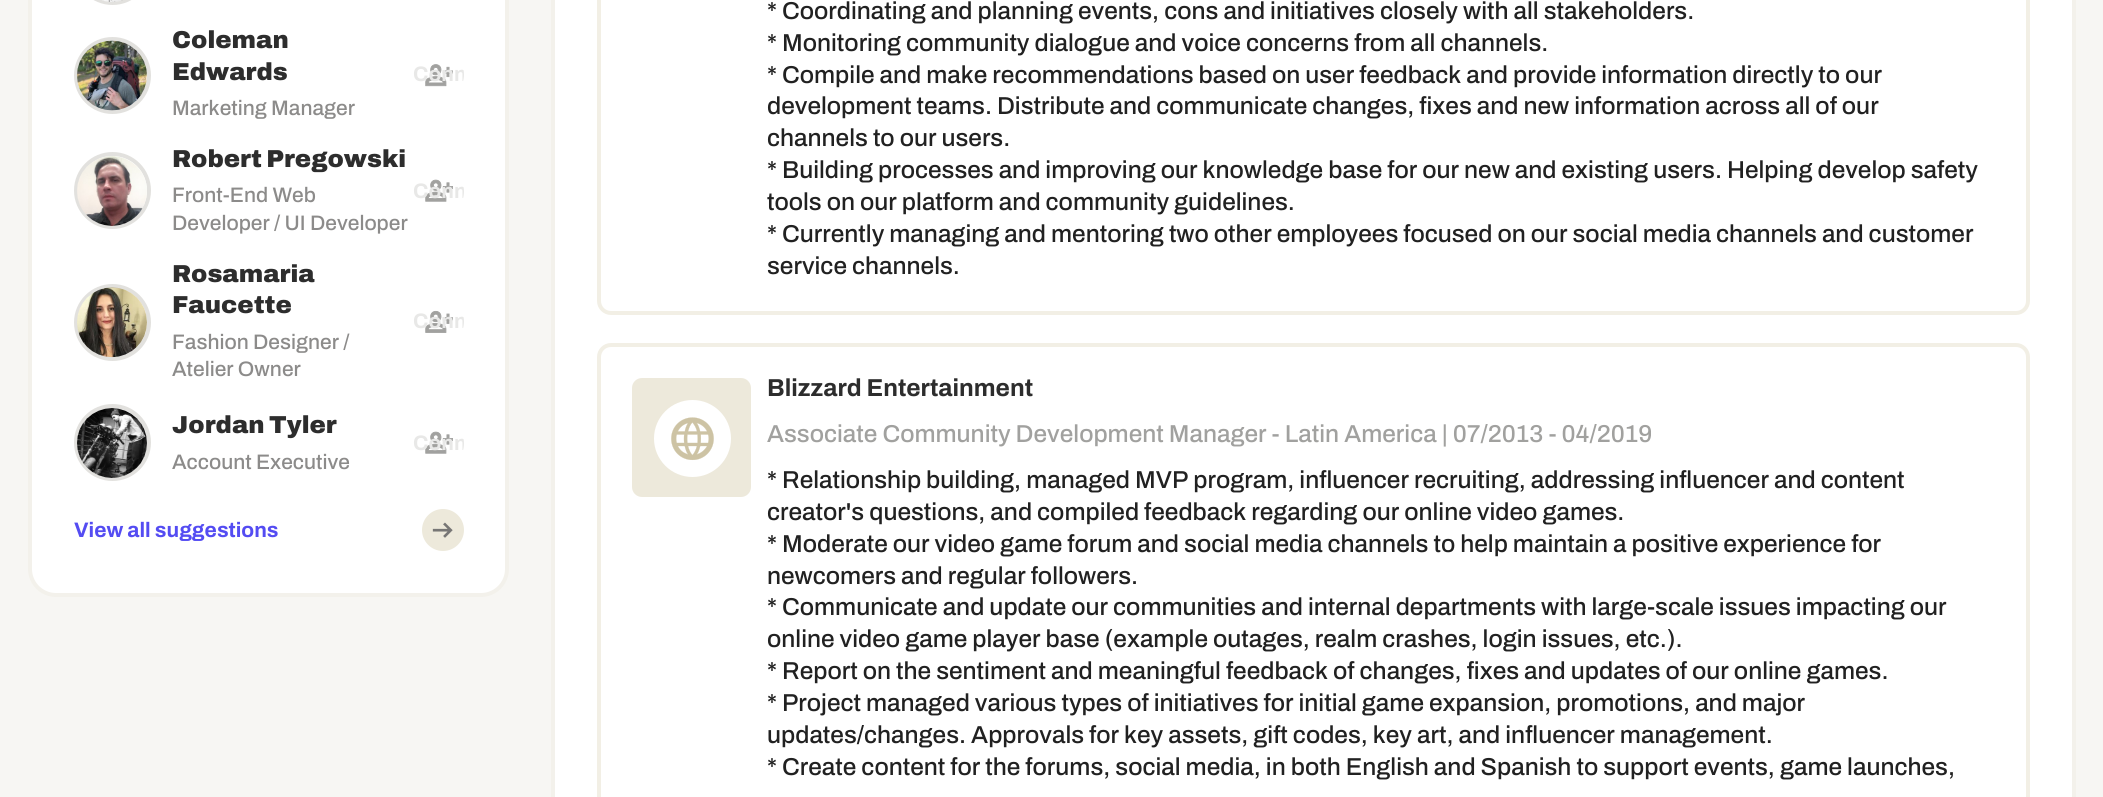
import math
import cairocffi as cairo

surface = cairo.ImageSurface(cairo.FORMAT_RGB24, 2103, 797)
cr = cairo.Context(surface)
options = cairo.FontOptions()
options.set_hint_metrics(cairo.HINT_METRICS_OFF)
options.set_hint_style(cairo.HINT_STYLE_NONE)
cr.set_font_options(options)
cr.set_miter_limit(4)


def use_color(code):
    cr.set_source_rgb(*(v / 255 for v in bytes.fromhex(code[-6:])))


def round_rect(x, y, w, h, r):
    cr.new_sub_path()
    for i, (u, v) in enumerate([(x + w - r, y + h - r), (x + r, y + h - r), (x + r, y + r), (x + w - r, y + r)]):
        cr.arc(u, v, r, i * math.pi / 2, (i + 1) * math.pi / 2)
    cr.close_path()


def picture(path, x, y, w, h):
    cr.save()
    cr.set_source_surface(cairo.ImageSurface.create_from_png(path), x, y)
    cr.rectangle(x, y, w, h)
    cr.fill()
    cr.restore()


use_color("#f7f6f3")
cr.paint()
use_color("#ffffff")
round_rect(30, -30, 477, 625, 26)
cr.fill_preserve()
use_color("#f3f1eb")
cr.set_line_width(4)
cr.stroke()
round_rect(76, -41, 73, 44, 36.5)
use_color("#e2e1de")
cr.stroke()
picture("img1.png", 102, 0, 21, 2)
cr.arc(112.5, 75.5, 36.5, 0, 2 * math.pi)
cr.stroke()
picture("img2.png", 77, 40, 70, 71)
cr.select_font_face("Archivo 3 SemiBold")
cr.set_font_size(24.5)
use_color("#2d2d2d")
cr.move_to(172, 48)
cr.show_text("Coleman")
cr.move_to(172, 80)
cr.show_text("Edwards")
cr.select_font_face("Archivo SemiBold")
cr.set_font_size(21)
use_color("#8c8b8a")
cr.move_to(172, 115)
cr.show_text("Marketing Manager")
picture("img3.png", 425, 64, 28, 23)
cr.save()
round_rect(413, 49, 51, 51, 25.5)
cr.clip()
cr.select_font_face("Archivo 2 SemiBold")
use_color("#e8e8e7")
cr.move_to(413, 81)
cr.show_text("Conn")
cr.restore()
cr.new_path()
cr.arc(112.5, 190.5, 36.5, 0, 2 * math.pi)
use_color("#e2e1de")
cr.stroke()
picture("img4.png", 77, 156, 70, 70)
cr.select_font_face("Archivo 3 SemiBold")
cr.set_font_size(24.5)
use_color("#2d2d2d")
cr.move_to(172, 167)
cr.show_text("Robert Pregowski")
cr.select_font_face("Archivo SemiBold")
cr.set_font_size(21)
use_color("#8c8b8a")
cr.move_to(172, 202)
cr.show_text("Front-End Web")
cr.move_to(172, 230)
cr.show_text("Developer / UI Developer")
picture("img5.png", 425, 179, 28, 23)
cr.save()
round_rect(413, 166, 51, 51, 25.5)
cr.clip()
cr.select_font_face("Archivo 2 SemiBold")
use_color("#e8e8e7")
cr.move_to(413, 198)
cr.show_text("Conn")
cr.restore()
cr.new_path()
cr.arc(112.5, 322.5, 36.5, 0, 2 * math.pi)
use_color("#e2e1de")
cr.stroke()
picture("img6.png", 77, 287, 70, 71)
cr.select_font_face("Archivo 3 SemiBold")
cr.set_font_size(24.5)
use_color("#2d2d2d")
cr.move_to(172, 282)
cr.show_text("Rosamaria")
cr.move_to(172, 313)
cr.show_text("Faucette")
cr.select_font_face("Archivo SemiBold")
cr.set_font_size(21)
use_color("#8c8b8a")
cr.move_to(172, 349)
cr.show_text("Fashion Designer /")
cr.move_to(172, 376)
cr.show_text("Atelier Owner")
picture("img7.png", 425, 310, 28, 23)
cr.save()
round_rect(413, 296, 51, 51, 25.5)
cr.clip()
cr.select_font_face("Archivo 2 SemiBold")
use_color("#e8e8e7")
cr.move_to(413, 328)
cr.show_text("Conn")
cr.restore()
cr.new_path()
cr.arc(112.5, 442.5, 36.5, 0, 2 * math.pi)
use_color("#e2e1de")
cr.stroke()
picture("img8.png", 77, 408, 70, 70)
cr.select_font_face("Archivo 3 SemiBold")
cr.set_font_size(24.5)
use_color("#2d2d2d")
cr.move_to(172, 433)
cr.show_text("Jordan Tyler")
cr.select_font_face("Archivo SemiBold")
cr.set_font_size(21)
use_color("#8c8b8a")
cr.move_to(172, 469)
cr.show_text("Account Executive")
picture("img5.png", 425, 431, 28, 23)
cr.save()
round_rect(413, 418, 51, 51, 25.5)
cr.clip()
cr.select_font_face("Archivo 2 SemiBold")
use_color("#e8e8e7")
cr.move_to(413, 450)
cr.show_text("Conn")
cr.restore()
cr.select_font_face("Archivo 2 SemiBold")
use_color("#544cf2")
cr.move_to(74, 537)
cr.show_text("View all suggestions")
use_color("#ede9db")
cr.new_path()
cr.arc(443, 530, 21, 0, 2 * math.pi)
cr.fill()
picture("img9.png", 432, 522, 21, 16)
use_color("#ffffff")
cr.rectangle(553, -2, 1521, 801)
cr.fill_preserve()
use_color("#f3f1eb")
cr.stroke()
round_rect(599, -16, 1429, 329, 12)
use_color("#f2efe5")
cr.stroke()
cr.select_font_face("Archivo SemiBold")
cr.set_font_size(24.5)
use_color("#212121")
cr.move_to(767, 19)
cr.show_text("* Coordinating and planning events, cons and initiatives closely with all stakeholders.")
cr.move_to(767, 51)
cr.show_text("* Monitoring community dialogue and voice concerns from all channels.")
cr.move_to(767, 83)
cr.show_text("* Compile and make recommendations based on user feedback and provide information directly to our")
cr.move_to(767, 114)
cr.show_text("development teams. Distribute and communicate changes, fixes and new information across all of our")
cr.move_to(767, 146)
cr.show_text("channels to our users.")
cr.move_to(767, 178)
cr.show_text("* Building processes and improving our knowledge base for our new and existing users. Helping develop safety")
cr.move_to(767, 210)
cr.show_text("tools on our platform and community guidelines.")
cr.move_to(767, 242)
cr.show_text("* Currently managing and mentoring two other employees focused on our social media channels and customer")
cr.move_to(767, 274)
cr.show_text("service channels.")
round_rect(599, 345, 1429, 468, 12)
use_color("#f2efe5")
cr.stroke()
picture("img10.png", 632, 378, 119, 119)
cr.select_font_face("Archivo 2 SemiBold")
use_color("#2d2d2d")
cr.move_to(767, 396)
cr.show_text("Blizzard Entertainment")
cr.select_font_face("Archivo SemiBold")
use_color("#a1a19f")
cr.move_to(767, 442)
cr.show_text("Associate Community Development Manager - Latin America | 07/2013 - 04/2019")
use_color("#212121")
cr.move_to(767, 488)
cr.show_text("* Relationship building, managed MVP program, influencer recruiting, addressing influencer and content")
cr.move_to(767, 520)
cr.show_text("creator's questions, and compiled feedback regarding our online video games.")
cr.move_to(767, 552)
cr.show_text("* Moderate our video game forum and social media channels to help maintain a positive experience for")
cr.move_to(767, 584)
cr.show_text("newcomers and regular followers.")
cr.move_to(767, 615)
cr.show_text("* Communicate and update our communities and internal departments with large-scale issues impacting our")
cr.move_to(767, 647)
cr.show_text("online video game player base (example outages, realm crashes, login issues, etc.).")
cr.move_to(767, 679)
cr.show_text("* Report on the sentiment and meaningful feedback of changes, fixes and updates of our online games.")
cr.move_to(767, 711)
cr.show_text("* Project managed various types of initiatives for initial game expansion, promotions, and major")
cr.move_to(767, 743)
cr.show_text("updates/changes. Approvals for key assets, gift codes, key art, and influencer management.")
cr.move_to(767, 775)
cr.show_text("* Create content for the forums, social media, in both English and Spanish to support events, game launches,")
surface.write_to_png("result.png")
